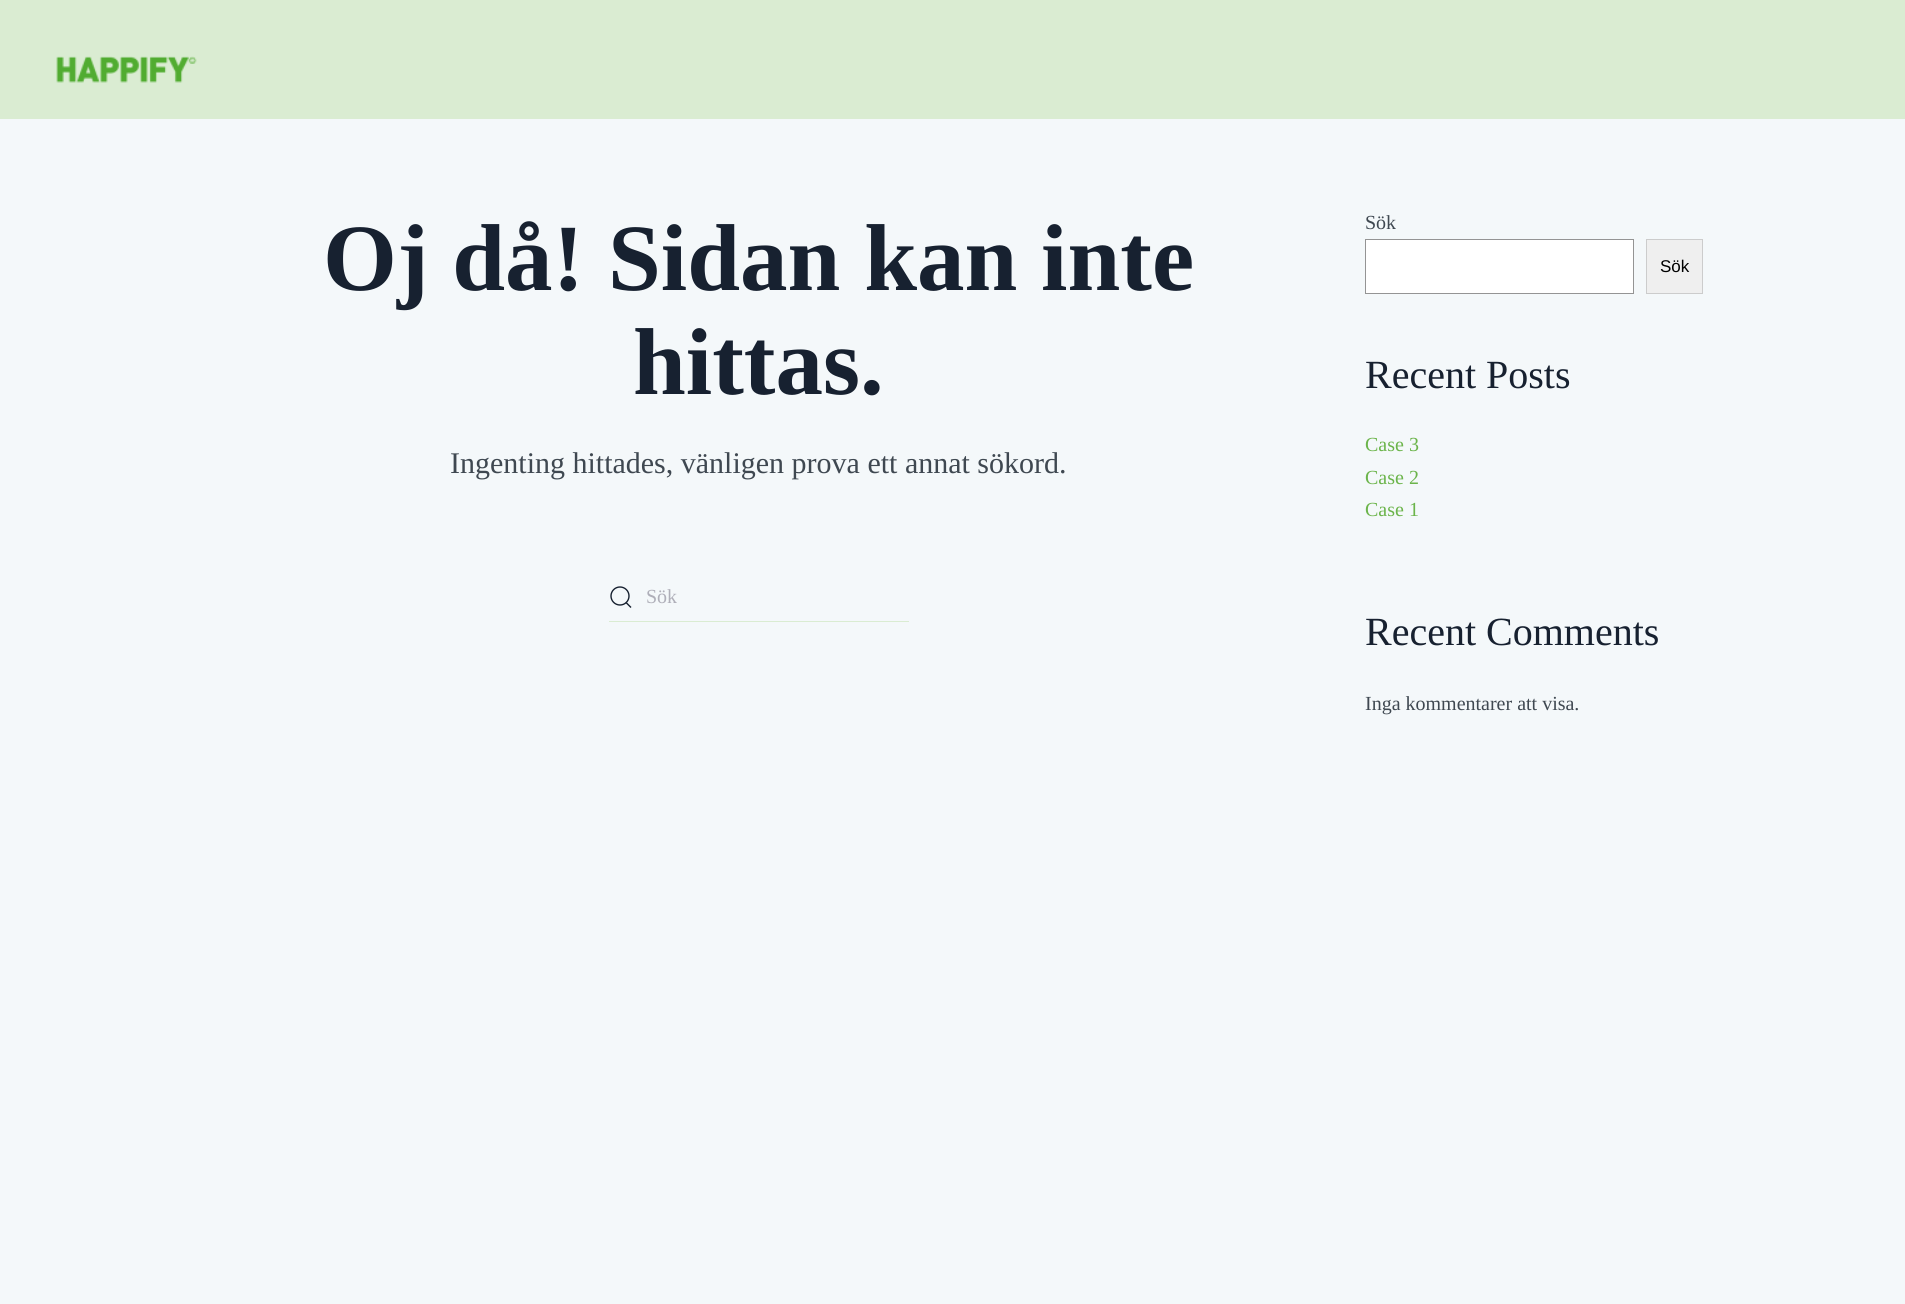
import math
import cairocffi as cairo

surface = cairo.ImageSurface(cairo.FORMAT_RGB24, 1905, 1304)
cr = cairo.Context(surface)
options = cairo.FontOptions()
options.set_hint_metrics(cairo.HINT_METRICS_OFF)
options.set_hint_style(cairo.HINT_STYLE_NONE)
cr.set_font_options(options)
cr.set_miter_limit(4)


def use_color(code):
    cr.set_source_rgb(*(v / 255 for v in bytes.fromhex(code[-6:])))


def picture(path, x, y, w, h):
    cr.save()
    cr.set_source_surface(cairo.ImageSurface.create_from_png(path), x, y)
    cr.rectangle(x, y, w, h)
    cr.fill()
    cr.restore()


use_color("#f4f8fa")
cr.paint()
use_color("#daecd2")
cr.rectangle(0, 0, 1905, 119)
cr.fill()
picture("img1.png", 56, 56, 141, 27)
cr.select_font_face("Liberation Serif", cairo.FONT_SLANT_NORMAL, cairo.FONT_WEIGHT_BOLD)
cr.set_font_size(95)
use_color("#172130")
cr.move_to(323, 290)
cr.show_text("Oj då! Sidan kan inte")
cr.move_to(633, 394)
cr.show_text("hittas.")
cr.select_font_face("Liberation Serif")
cr.set_font_size(30)
use_color("#3f4851")
cr.move_to(450, 473)
cr.show_text("Ingenting hittades, vänligen prova ett annat sökord.")
cr.new_path()
cr.arc(620, 596, 9, 0, 2 * math.pi)
use_color("#172130")
cr.set_line_width(1.4)
cr.stroke()
cr.new_path()
cr.move_to(626, 602.5)
cr.line_to(631, 607.5)
cr.close_path()
cr.stroke()
use_color("#daecd2")
cr.rectangle(609, 621, 300, 1)
cr.fill()
cr.set_font_size(20)
use_color("#afafb9")
cr.move_to(646, 603)
cr.show_text("Sök")
use_color("#3f4851")
cr.move_to(1365, 229)
cr.show_text("Sök")
use_color("#ffffff")
cr.rectangle(1365.5, 239.5, 268, 54)
cr.fill_preserve()
use_color("#949494")
cr.set_line_width(1)
cr.stroke()
use_color("#efefef")
cr.rectangle(1646.5, 239.5, 56, 54)
cr.fill_preserve()
use_color("#cccccc")
cr.stroke()
cr.select_font_face("Liberation Sans")
cr.set_font_size(17)
use_color("#000000")
cr.move_to(1660, 272)
cr.show_text("Sök")
cr.select_font_face("Liberation Serif")
cr.set_font_size(40)
use_color("#172130")
cr.move_to(1365, 388)
cr.show_text("Recent Posts")
cr.set_font_size(20)
use_color("#6bb44a")
cr.move_to(1365, 451)
cr.show_text("Case 3")
cr.move_to(1365, 484)
cr.show_text("Case 2")
cr.move_to(1365, 516)
cr.show_text("Case 1")
cr.set_font_size(40)
use_color("#172130")
cr.move_to(1365, 645)
cr.show_text("Recent Comments")
cr.set_font_size(20)
use_color("#3f4851")
cr.move_to(1365, 710)
cr.show_text("Inga kommentarer att visa.")
surface.write_to_png("result.png")
